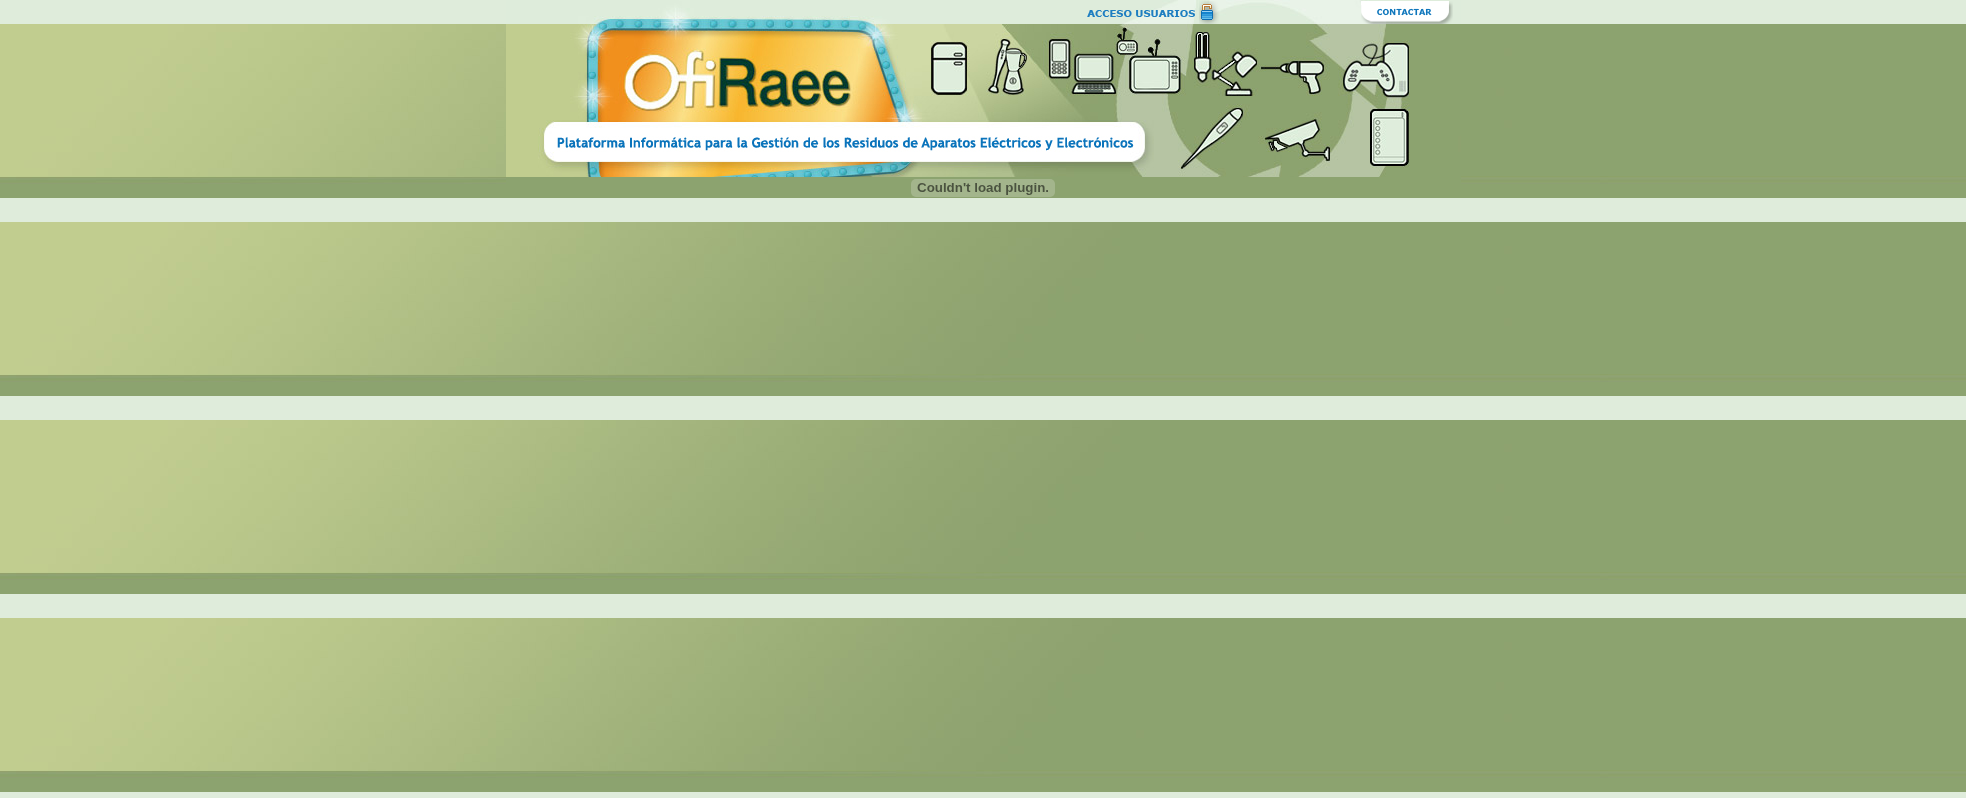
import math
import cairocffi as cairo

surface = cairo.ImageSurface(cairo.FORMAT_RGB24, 1966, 798)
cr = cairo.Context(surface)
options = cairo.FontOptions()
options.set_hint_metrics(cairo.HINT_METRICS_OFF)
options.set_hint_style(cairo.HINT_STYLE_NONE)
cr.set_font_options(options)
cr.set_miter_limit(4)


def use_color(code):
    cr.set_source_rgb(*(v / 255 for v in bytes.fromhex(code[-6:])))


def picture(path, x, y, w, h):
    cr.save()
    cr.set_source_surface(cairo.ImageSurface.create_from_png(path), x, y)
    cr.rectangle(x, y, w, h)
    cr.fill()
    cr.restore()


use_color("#ffffff")
cr.paint()
picture("img1.png", 0, 0, 1966, 798)
picture("img2.png", 506, 0, 955, 177)
picture("img3.png", 1087, 1, 132, 23)
picture("img4.png", 1361, 1, 92, 23)
use_color("#8ca36f")
cr.rectangle(506, 177, 955, 7)
cr.fill()
picture("img5.png", 911, 179, 144, 18)
surface.write_to_png("result.png")
